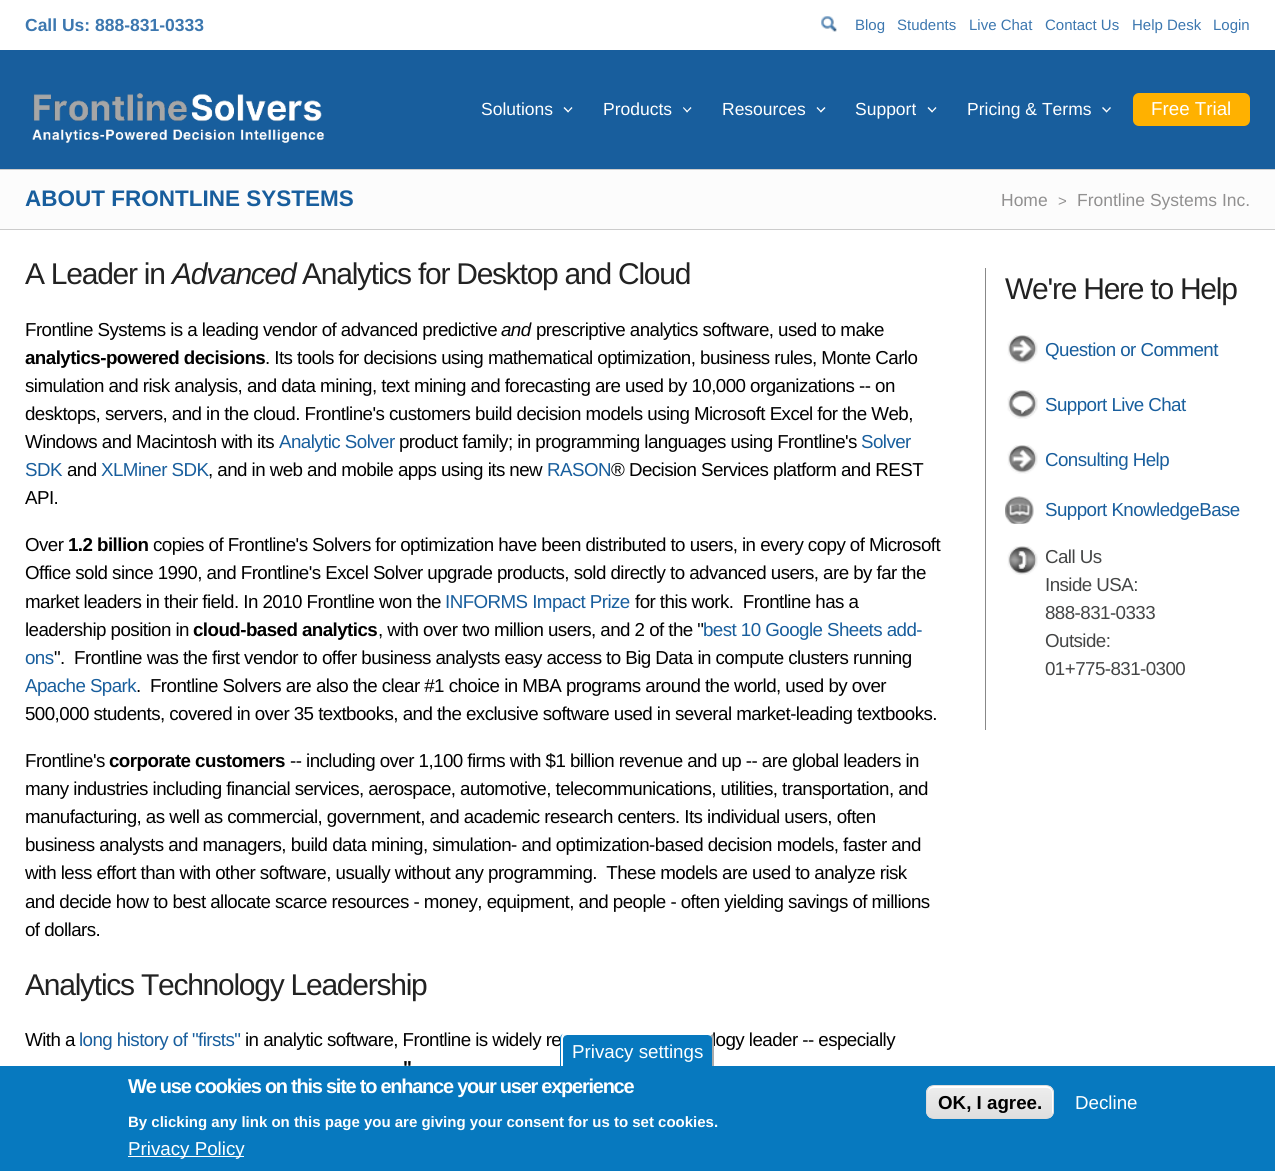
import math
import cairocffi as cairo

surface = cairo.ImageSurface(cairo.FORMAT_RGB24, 1275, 1171)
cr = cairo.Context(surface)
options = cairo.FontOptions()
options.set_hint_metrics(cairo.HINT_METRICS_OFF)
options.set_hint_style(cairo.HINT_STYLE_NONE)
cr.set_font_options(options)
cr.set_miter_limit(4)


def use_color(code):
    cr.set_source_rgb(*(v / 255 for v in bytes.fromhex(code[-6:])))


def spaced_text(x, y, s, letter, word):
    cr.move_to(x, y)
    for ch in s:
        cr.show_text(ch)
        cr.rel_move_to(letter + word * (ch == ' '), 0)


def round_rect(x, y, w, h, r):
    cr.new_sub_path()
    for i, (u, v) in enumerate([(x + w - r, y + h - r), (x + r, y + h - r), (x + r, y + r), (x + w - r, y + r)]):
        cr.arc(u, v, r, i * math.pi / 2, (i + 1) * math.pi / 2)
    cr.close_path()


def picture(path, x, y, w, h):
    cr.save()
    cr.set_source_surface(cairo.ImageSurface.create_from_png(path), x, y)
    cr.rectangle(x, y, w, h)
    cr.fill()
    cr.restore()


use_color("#ffffff")
cr.paint()
cr.select_font_face("Liberation Sans", cairo.FONT_SLANT_NORMAL, cairo.FONT_WEIGHT_BOLD)
cr.set_font_size(17.5)
use_color("#3c77af")
cr.move_to(25, 31)
cr.show_text("Call Us: 888-831-0333")
picture("img1.png", 821, 16, 16, 16)
cr.select_font_face("Liberation Sans")
cr.set_font_size(15)
cr.move_to(855, 30)
cr.show_text("Blog")
cr.move_to(897, 30)
cr.show_text("Students")
cr.move_to(969, 30)
cr.show_text("Live Chat")
cr.move_to(1045, 30)
cr.show_text("Contact Us")
cr.move_to(1132, 30)
cr.show_text("Help Desk")
cr.move_to(1213, 30)
cr.show_text("Login")
use_color("#185e9d")
cr.rectangle(0, 50, 1275, 119)
cr.fill()
picture("img2.png", 32, 93, 293, 50)
cr.set_font_size(17.5)
use_color("#ffffff")
cr.move_to(481, 115)
cr.show_text("Solutions")
cr.new_path()
cr.move_to(571.5, 107)
cr.line_to(572.5, 108)
cr.line_to(568, 112.5)
cr.line_to(567.5, 111.5)
cr.close_path()
cr.fill()
cr.new_path()
cr.move_to(564.5, 107)
cr.line_to(569, 111.5)
cr.line_to(568, 112.5)
cr.line_to(563.5, 108)
cr.close_path()
cr.fill()
cr.move_to(603, 115)
cr.show_text("Products")
cr.new_path()
cr.move_to(690.5, 107)
cr.line_to(691.5, 108)
cr.line_to(687, 112.5)
cr.line_to(686.5, 111.5)
cr.close_path()
cr.fill()
cr.new_path()
cr.move_to(683.5, 107)
cr.line_to(688, 111.5)
cr.line_to(687, 112.5)
cr.line_to(683, 108)
cr.close_path()
cr.fill()
cr.move_to(722, 115)
cr.show_text("Resources")
cr.new_path()
cr.move_to(824.5, 107)
cr.line_to(825.5, 108)
cr.line_to(821, 112.5)
cr.line_to(820, 111.5)
cr.close_path()
cr.fill()
cr.new_path()
cr.move_to(817.5, 107)
cr.line_to(821.5, 111.5)
cr.line_to(821, 112.5)
cr.line_to(816.5, 108)
cr.close_path()
cr.fill()
cr.move_to(855, 115)
cr.show_text("Support")
cr.new_path()
cr.move_to(935.5, 107)
cr.line_to(936.5, 108)
cr.line_to(932, 112.5)
cr.line_to(931.5, 111.5)
cr.close_path()
cr.fill()
cr.new_path()
cr.move_to(928.5, 107)
cr.line_to(933, 111.5)
cr.line_to(932, 112.5)
cr.line_to(927.5, 108)
cr.close_path()
cr.fill()
cr.move_to(967, 115)
cr.show_text("Pricing & Terms")
cr.new_path()
cr.move_to(1110, 107)
cr.line_to(1111, 108)
cr.line_to(1106.5, 112.5)
cr.line_to(1106, 111.5)
cr.close_path()
cr.fill()
cr.new_path()
cr.move_to(1103, 107)
cr.line_to(1107.5, 111.5)
cr.line_to(1106.5, 112.5)
cr.line_to(1102, 108)
cr.close_path()
cr.fill()
use_color("#ffb100")
round_rect(1133, 93, 117, 33, 6)
cr.fill()
cr.set_font_size(18.75)
use_color("#ffffff")
cr.move_to(1151, 115)
cr.show_text("Free Trial")
use_color("#fcfcfc")
cr.rectangle(0, 170, 1275, 59)
cr.fill()
use_color("#cccccc")
cr.rectangle(0, 169, 1275, 1)
cr.fill()
cr.rectangle(0, 229, 1275, 1)
cr.fill()
cr.select_font_face("Liberation Sans", cairo.FONT_SLANT_NORMAL, cairo.FONT_WEIGHT_BOLD)
cr.set_font_size(22.5)
use_color("#185e9d")
cr.move_to(25, 206)
cr.show_text("ABOUT FRONTLINE SYSTEMS")
cr.select_font_face("Liberation Sans")
cr.set_font_size(17.5)
use_color("#919090")
cr.move_to(1001, 206)
cr.show_text("Home")
cr.set_font_size(15)
cr.move_to(1058, 206)
cr.show_text(">")
cr.set_font_size(17.5)
cr.move_to(1077, 206)
cr.show_text("Frontline Systems Inc.")
cr.set_font_size(30)
use_color("#222222")
spaced_text(25, 284, "A Leader in", -1.25, 0)
cr.select_font_face("Liberation Sans", cairo.FONT_SLANT_ITALIC)
spaced_text(172, 284, "Advanced", -1.25, 0)
cr.select_font_face("Liberation Sans")
spaced_text(302, 284, "Analytics for Desktop and Cloud", -1.25, 0)
cr.set_font_size(18.75)
use_color("#000000")
spaced_text(25, 336, "Frontline Systems is a leading vendor of advanced predictive", -0.56, 0)
cr.select_font_face("Liberation Sans", cairo.FONT_SLANT_ITALIC)
spaced_text(501, 336, "and", -0.56, 0)
cr.select_font_face("Liberation Sans")
spaced_text(536, 336, "prescriptive analytics software, used to make", -0.56, 0)
cr.select_font_face("Liberation Sans", cairo.FONT_SLANT_NORMAL, cairo.FONT_WEIGHT_BOLD)
spaced_text(25, 364, "analytics-powered decisions", -0.56, 0)
cr.select_font_face("Liberation Sans")
spaced_text(265, 364, ". Its tools for decisions using mathematical optimization, business rules, Monte Carlo", -0.56, 0)
spaced_text(25, 392, "simulation and risk analysis, and data mining, text mining and forecasting are used by 10,000 organizations -- on", -0.56, 0)
spaced_text(25, 420, "desktops, servers, and in the cloud. Frontline's customers build decision models using Microsoft Excel for the Web,", -0.56, 0)
spaced_text(25, 448, "Windows and Macintosh with its", -0.56, 0)
use_color("#185e9d")
spaced_text(279, 448, "Analytic Solver", -0.56, 0)
use_color("#000000")
spaced_text(399, 448, "product family; in programming languages using Frontline's", -0.56, 0)
use_color("#185e9d")
spaced_text(861, 448, "Solver", -0.56, 0)
spaced_text(25, 476, "SDK", -0.56, 0)
use_color("#000000")
spaced_text(67, 476, "and", -0.56, 0)
use_color("#185e9d")
spaced_text(101, 476, "XLMiner SDK", -0.56, 0)
use_color("#000000")
spaced_text(208, 476, ", and in web and mobile apps using its new", -0.56, 0)
use_color("#185e9d")
spaced_text(547, 476, "RASON", -0.56, 0)
use_color("#000000")
spaced_text(611, 476, "® Decision Services platform and REST", -0.56, 0)
spaced_text(25, 504, "API.", -0.56, 0)
spaced_text(25, 551, "Over", -0.56, 0)
cr.select_font_face("Liberation Sans", cairo.FONT_SLANT_NORMAL, cairo.FONT_WEIGHT_BOLD)
spaced_text(68, 551, "1.2 billion", -0.56, 0)
cr.select_font_face("Liberation Sans")
spaced_text(153, 551, "copies of Frontline's Solvers for optimization have been distributed to users, in every copy of Microsoft", -0.56, 0)
spaced_text(25, 579, "Office sold since 1990, and Frontline's Excel Solver upgrade products, sold directly to advanced users, are by far the", -0.56, 0)
spaced_text(25, 608, "market leaders in their field. In 2010 Frontline won the", -0.56, 0)
use_color("#185e9d")
spaced_text(445, 608, "INFORMS Impact Prize", -0.56, 0)
use_color("#000000")
spaced_text(635, 608, "for this work.  Frontline has a", -0.56, 0)
spaced_text(25, 636, "leadership position in", -0.56, 0)
cr.select_font_face("Liberation Sans", cairo.FONT_SLANT_NORMAL, cairo.FONT_WEIGHT_BOLD)
spaced_text(193, 636, "cloud-based analytics", -0.56, 0)
cr.select_font_face("Liberation Sans")
spaced_text(378, 636, ", with over two million users, and 2 of the \"", -0.56, 0)
use_color("#185e9d")
spaced_text(703, 636, "best 10 Google Sheets add-", -0.56, 0)
spaced_text(25, 664, "ons", -0.56, 0)
use_color("#000000")
spaced_text(54, 664, "\".  Frontline was the first vendor to offer business analysts easy access to Big Data in compute clusters running", -0.56, 0)
use_color("#185e9d")
spaced_text(25, 692, "Apache Spark", -0.56, 0)
use_color("#000000")
spaced_text(136, 692, ".  Frontline Solvers are also the clear #1 choice in MBA programs around the world, used by over", -0.56, 0)
spaced_text(25, 720, "500,000 students, covered in over 35 textbooks, and the exclusive software used in several market-leading textbooks.", -0.56, 0)
spaced_text(25, 767, "Frontline's", -0.56, 0)
cr.select_font_face("Liberation Sans", cairo.FONT_SLANT_NORMAL, cairo.FONT_WEIGHT_BOLD)
spaced_text(109, 767, "corporate customers", -0.56, 0)
cr.select_font_face("Liberation Sans")
spaced_text(290, 767, "-- including over 1,100 firms with $1 billion revenue and up -- are global leaders in", -0.56, 0)
spaced_text(25, 795, "many industries including financial services, aerospace, automotive, telecommunications, utilities, transportation, and", -0.56, 0)
spaced_text(25, 823, "manufacturing, as well as commercial, government, and academic research centers. Its individual users, often", -0.56, 0)
spaced_text(25, 851, "business analysts and managers, build data mining, simulation- and optimization-based decision models, faster and", -0.56, 0)
spaced_text(25, 879, "with less effort than with other software, usually without any programming.  These models are used to analyze risk", -0.56, 0)
spaced_text(25, 908, "and decide how to best allocate scarce resources - money, equipment, and people - often yielding savings of millions", -0.56, 0)
spaced_text(25, 936, "of dollars.", -0.56, 0)
cr.set_font_size(30)
use_color("#222222")
spaced_text(25, 995, "Analytics Technology Leadership", -1.25, 0)
cr.set_font_size(18.75)
use_color("#000000")
spaced_text(25, 1046, "With a", -0.56, 0)
use_color("#185e9d")
spaced_text(79, 1046, "long history of \"firsts\"", -0.56, 0)
use_color("#000000")
spaced_text(245, 1046, "in analytic software, Frontline is widely re", -0.56, 0)
spaced_text(712, 1046, "logy leader -- especially", -0.56, 0)
cr.select_font_face("Liberation Sans", cairo.FONT_SLANT_NORMAL, cairo.FONT_WEIGHT_BOLD)
spaced_text(403, 1074, "\"", -0.56, 0)
use_color("#888888")
cr.rectangle(985, 268, 1, 462)
cr.fill()
cr.select_font_face("Liberation Sans")
cr.set_font_size(30)
use_color("#222222")
spaced_text(1005, 299, "We're Here to Help", -1.25, 0)
picture("img3.png", 1007, 335, 31, 29)
cr.set_font_size(18.75)
use_color("#185e9d")
spaced_text(1045, 356, "Question or Comment", -0.56, 0)
picture("img4.png", 1007, 390, 31, 29)
spaced_text(1045, 411, "Support Live Chat", -0.56, 0)
picture("img3.png", 1007, 445, 31, 29)
spaced_text(1045, 466, "Consulting Help", -0.56, 0)
picture("img5.png", 1005, 496, 29, 28)
spaced_text(1045, 516, "Support KnowledgeBase", -0.56, 0)
picture("img6.png", 1007, 546, 31, 29)
use_color("#444545")
spaced_text(1045, 563, "Call Us", -0.56, 0)
spaced_text(1045, 591, "Inside USA:", -0.56, 0)
spaced_text(1045, 619, "888-831-0333", -0.56, 0)
spaced_text(1045, 647, "Outside:", -0.56, 0)
spaced_text(1045, 675, "01+775-831-0300", -0.56, 0)
use_color("#0779bf")
cr.rectangle(0, 1066, 1275, 105)
cr.fill()
cr.new_path()
cr.move_to(566, 1033)
cr.line_to(708, 1033)
cr.curve_to(711.5, 1033, 714, 1035.5, 714, 1039)
cr.line_to(714, 1066)
cr.line_to(560, 1066)
cr.line_to(560, 1039)
cr.curve_to(560, 1035.5, 562.5, 1033, 566, 1033)
cr.close_path()
cr.fill()
use_color("#ffffff")
cr.new_path()
cr.move_to(567, 1035)
cr.line_to(564, 1036)
cr.line_to(562, 1034)
cr.line_to(564, 1032)
cr.line_to(711, 1032)
cr.line_to(713, 1034)
cr.line_to(711, 1036)
cr.line_to(708, 1035)
cr.close_path()
cr.fill()
use_color("#aaaaaa")
cr.new_path()
cr.move_to(712.5, 1034)
cr.line_to(710.5, 1036)
cr.curve_to(711.5, 1037, 712, 1038, 712, 1039)
cr.line_to(712, 1066)
cr.line_to(714, 1066)
cr.line_to(714, 1039)
cr.curve_to(714, 1037, 713.5, 1035.5, 712.5, 1034)
cr.close_path()
cr.fill()
use_color("#ffffff")
cr.new_path()
cr.move_to(564.5, 1036)
cr.line_to(562.5, 1034)
cr.curve_to(561.5, 1035.5, 561, 1037, 561, 1039)
cr.line_to(561, 1066)
cr.line_to(563, 1066)
cr.line_to(563, 1039)
cr.curve_to(563, 1038, 563.5, 1037, 564.5, 1036)
cr.close_path()
cr.fill()
cr.move_to(572, 1058)
cr.show_text("Privacy settings")
cr.select_font_face("Liberation Sans", cairo.FONT_SLANT_NORMAL, cairo.FONT_WEIGHT_BOLD)
cr.set_font_size(20)
spaced_text(128, 1093, "We use cookies on this site to enhance your user experience", -1.25, 0)
cr.set_font_size(15)
cr.move_to(128, 1127)
cr.show_text("By clicking any link on this page you are giving your consent for us to set cookies.")
cr.rectangle(128, 1156, 116, 1)
cr.fill()
cr.select_font_face("Liberation Sans")
cr.set_font_size(18.75)
cr.move_to(128, 1155)
cr.show_text("Privacy Policy")
cr.save()
round_rect(926, 1085, 128, 34, 8)
cr.clip()
gradient = cairo.LinearGradient(990, 1086, 990, 1118)
gradient.add_color_stop_rgba(0.05, 0.929, 0.929, 0.929, 1)
gradient.add_color_stop_rgba(1, 0.875, 0.875, 0.875, 1)
cr.set_source(gradient)
cr.rectangle(926, 1086, 128, 32)
cr.fill()
cr.restore()
cr.new_path()
cr.move_to(934, 1088)
cr.line_to(1046, 1088)
cr.curve_to(1050, 1088, 1052, 1090, 1052, 1094)
cr.line_to(1052, 1112)
cr.curve_to(1052, 1114, 1052, 1115, 1051, 1117)
cr.curve_to(1052, 1116, 1053, 1114, 1053, 1112)
cr.line_to(1053, 1092)
cr.curve_to(1053, 1089, 1050, 1086, 1047, 1086)
cr.line_to(934, 1086)
cr.curve_to(931, 1086, 928, 1089, 928, 1092)
cr.line_to(928, 1094)
cr.curve_to(928, 1090, 930, 1088, 934, 1088)
cr.close_path()
cr.fill()
round_rect(926.5, 1085.5, 127, 33, 7.5)
use_color("#dcdcdc")
cr.set_line_width(1)
cr.stroke()
cr.select_font_face("Liberation Sans", cairo.FONT_SLANT_NORMAL, cairo.FONT_WEIGHT_BOLD)
use_color("#000000")
cr.move_to(938, 1109)
cr.show_text("OK, I agree.")
cr.select_font_face("Liberation Sans")
use_color("#ffffff")
cr.move_to(1075, 1109)
cr.show_text("Decline")
surface.write_to_png("result.png")
